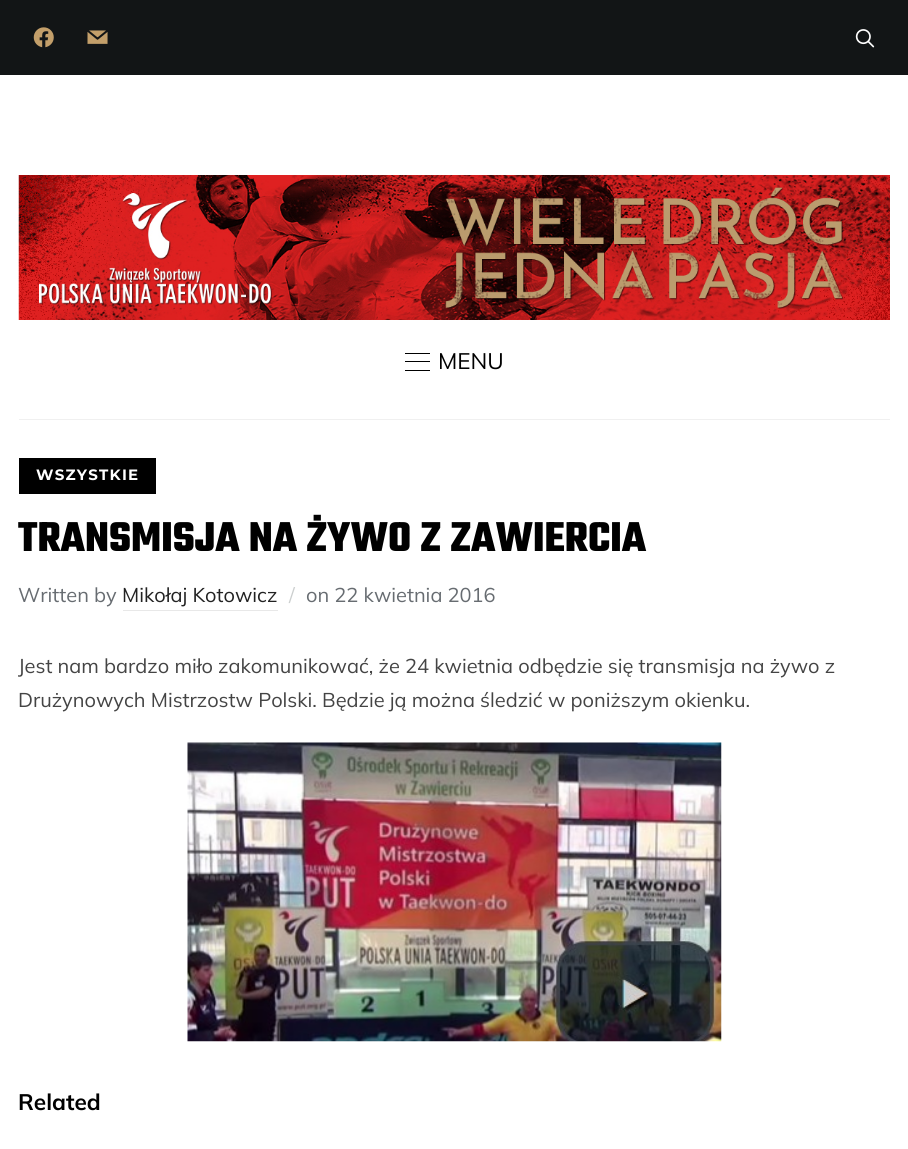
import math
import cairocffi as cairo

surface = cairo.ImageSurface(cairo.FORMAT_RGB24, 908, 1149)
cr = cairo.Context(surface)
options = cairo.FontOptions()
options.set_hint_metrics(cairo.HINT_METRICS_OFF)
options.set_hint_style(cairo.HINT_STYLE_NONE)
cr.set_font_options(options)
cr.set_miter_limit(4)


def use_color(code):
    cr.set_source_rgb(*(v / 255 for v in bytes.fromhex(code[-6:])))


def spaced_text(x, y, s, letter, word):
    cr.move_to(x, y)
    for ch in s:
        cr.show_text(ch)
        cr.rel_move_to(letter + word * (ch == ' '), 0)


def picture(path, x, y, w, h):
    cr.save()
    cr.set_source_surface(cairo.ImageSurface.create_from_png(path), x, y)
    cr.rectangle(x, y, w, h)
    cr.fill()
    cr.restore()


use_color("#ffffff")
cr.paint()
use_color("#121516")
cr.rectangle(0, 0, 908, 75)
cr.fill()
picture("img1.png", 33, 27, 21, 21)
picture("img2.png", 87, 30, 21, 14)
picture("img3.png", 855, 29, 20, 19)
picture("img4.png", 18, 175, 872, 145)
use_color("#f0f0f0")
cr.rectangle(19, 419, 871, 1)
cr.fill()
use_color("#000000")
cr.rectangle(405, 353, 25, 1)
cr.fill()
cr.rectangle(405, 361, 25, 1)
cr.fill()
cr.rectangle(405, 370, 25, 1)
cr.fill()
cr.select_font_face("Mulish")
cr.set_font_size(22.5)
cr.move_to(438, 369)
cr.show_text("MENU")
cr.rectangle(19, 458, 137, 36)
cr.fill()
cr.select_font_face("Montserrat", cairo.FONT_SLANT_NORMAL, cairo.FONT_WEIGHT_BOLD)
cr.set_font_size(15)
use_color("#ffffff")
spaced_text(36, 480, "WSZYSTKIE", 1.25, 0)
cr.select_font_face("Teko", cairo.FONT_SLANT_NORMAL, cairo.FONT_WEIGHT_BOLD)
cr.set_font_size(45)
use_color("#000000")
cr.move_to(18, 551)
cr.show_text("TRANSMISJA NA ŻYWO Z ZAWIERCIA")
cr.select_font_face("Mulish")
cr.set_font_size(20)
use_color("#676c71")
cr.move_to(18, 602)
cr.show_text("Written by")
use_color("#222222")
cr.move_to(122, 602)
cr.show_text("Mikołaj Kotowicz")
use_color("#e8e8e8")
cr.rectangle(123, 610, 155, 1)
cr.fill()
use_color("#cccfcf")
cr.move_to(289, 602)
cr.show_text("/")
use_color("#676c71")
cr.move_to(306, 602)
cr.show_text("on 22 kwietnia 2016")
use_color("#444444")
cr.move_to(18, 673)
cr.show_text("Jest nam bardzo miło zakomunikować, że 24 kwietnia odbędzie się transmisja na żywo z")
cr.move_to(18, 707)
cr.show_text("Drużynowych Mistrzostw Polski. Będzie ją można śledzić w poniższym okienku.")
picture("img5.png", 187, 742, 535, 300)
cr.select_font_face("Mulish", cairo.FONT_SLANT_NORMAL, cairo.FONT_WEIGHT_BOLD)
cr.set_font_size(22.5)
use_color("#000000")
cr.move_to(18, 1110)
cr.show_text("Related")
surface.write_to_png("result.png")
